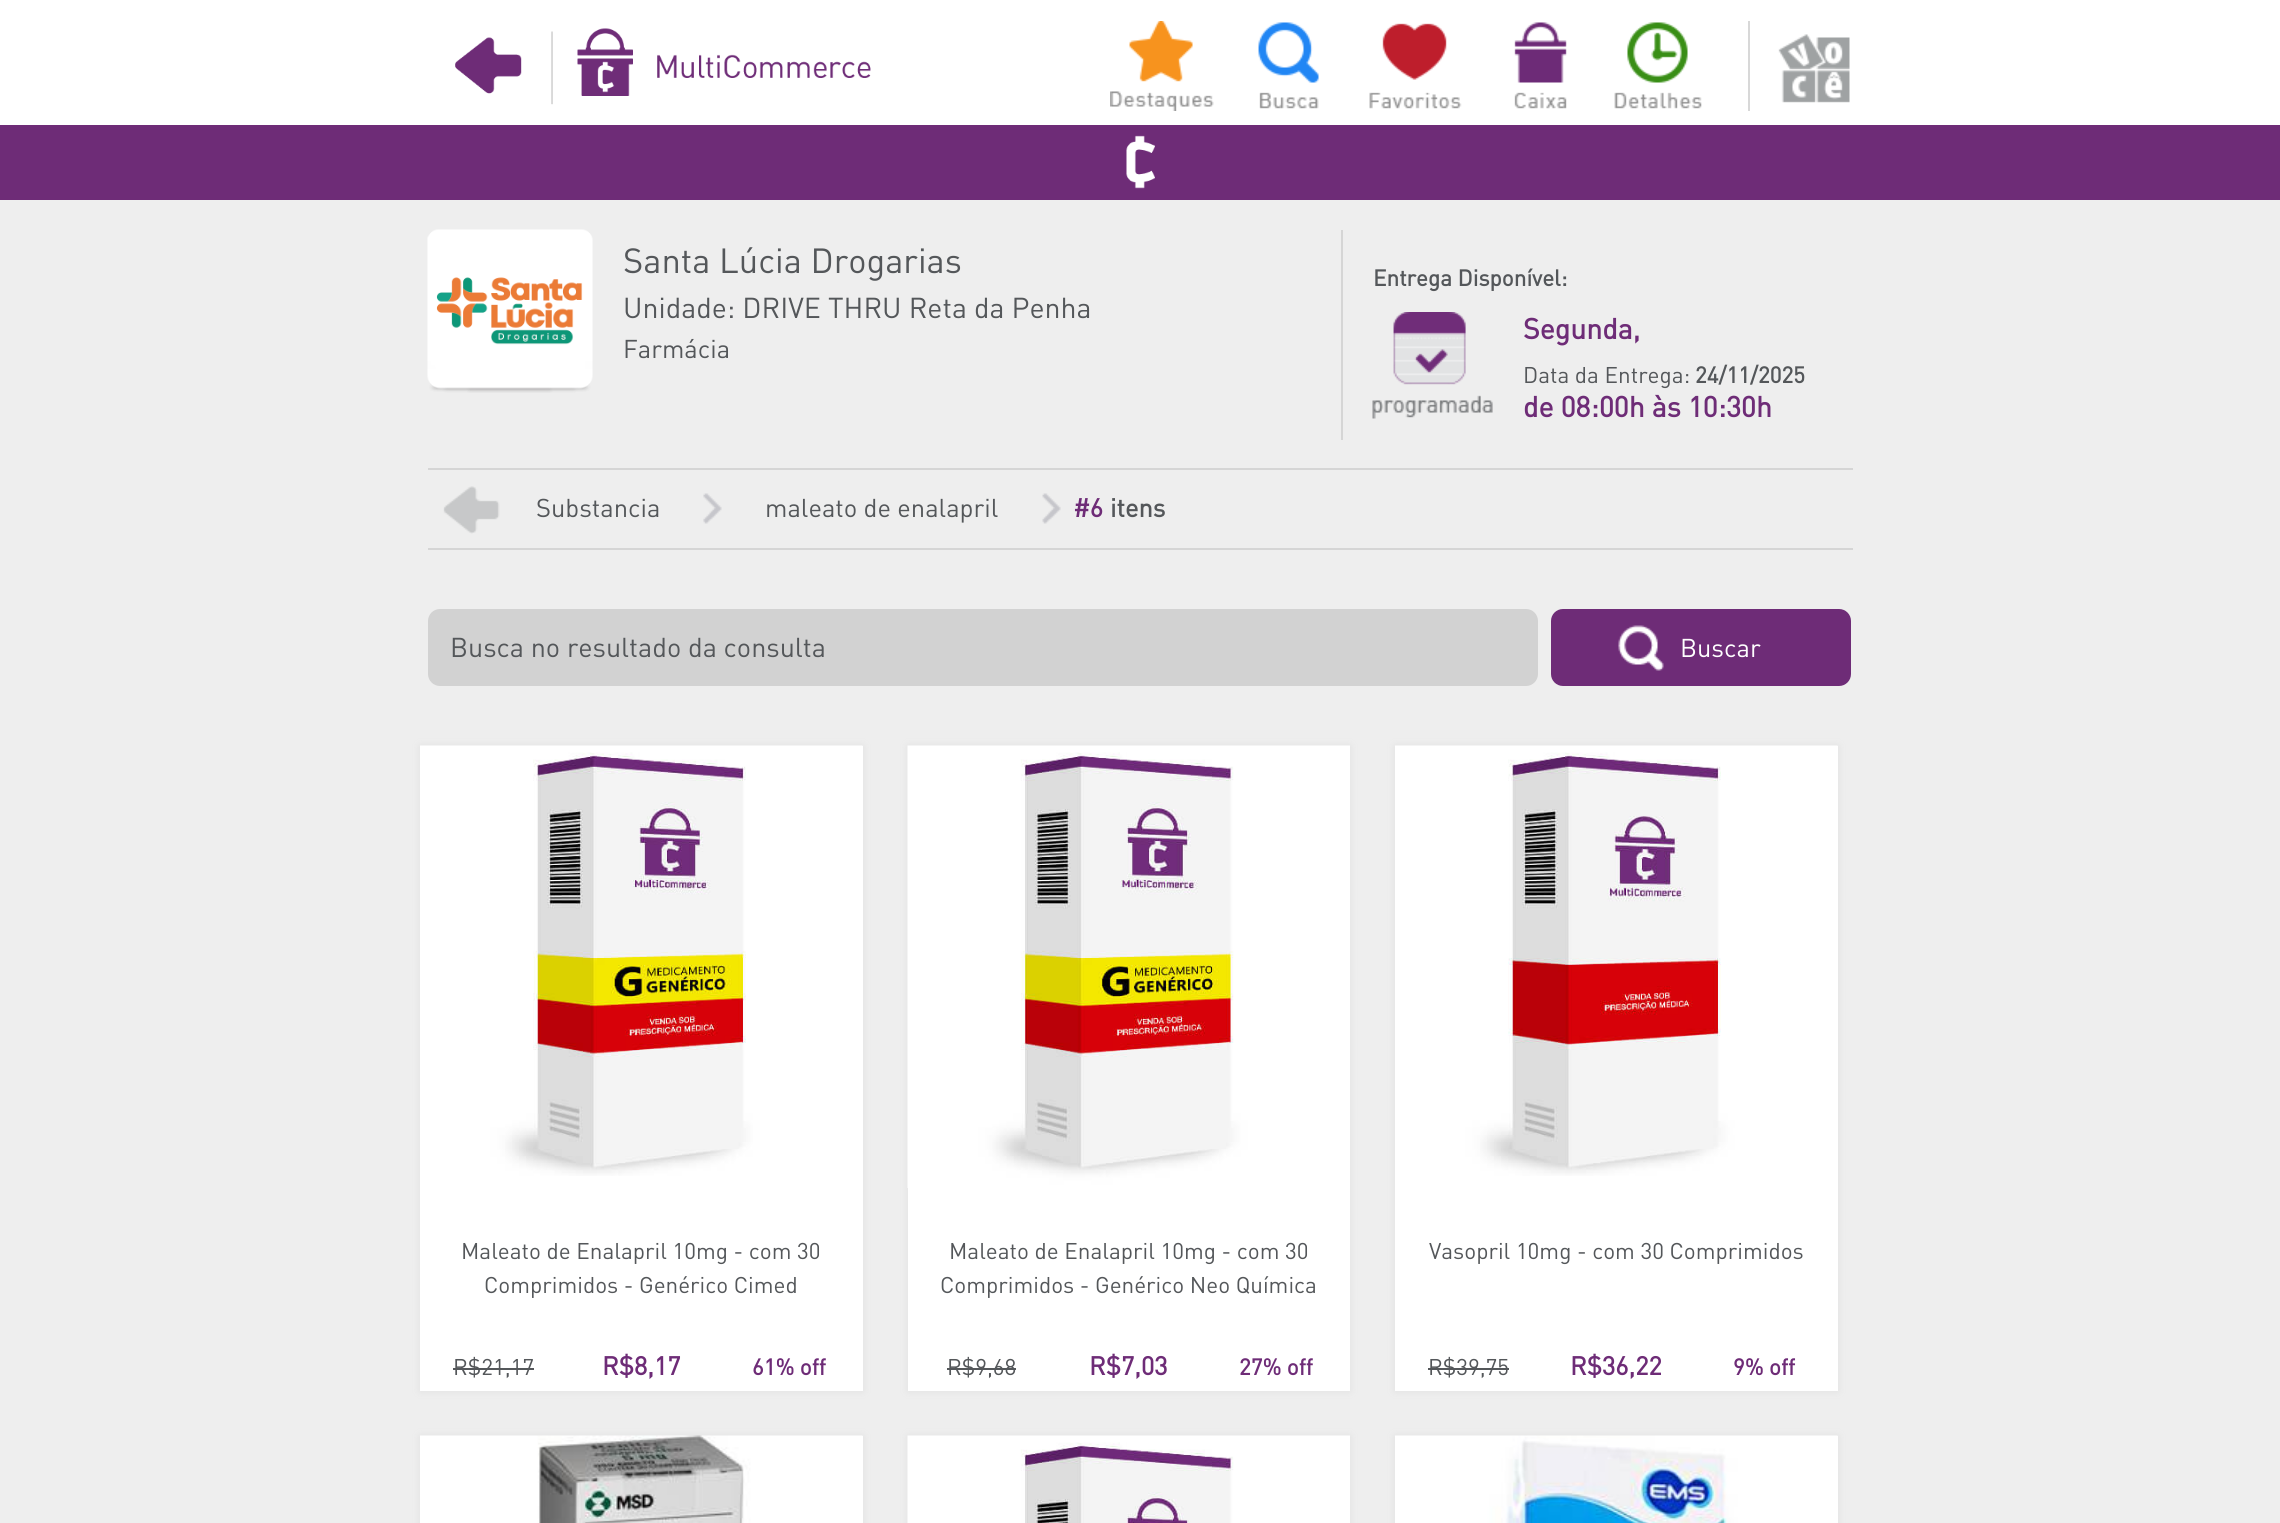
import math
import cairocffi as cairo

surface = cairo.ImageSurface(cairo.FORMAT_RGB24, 2280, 1523)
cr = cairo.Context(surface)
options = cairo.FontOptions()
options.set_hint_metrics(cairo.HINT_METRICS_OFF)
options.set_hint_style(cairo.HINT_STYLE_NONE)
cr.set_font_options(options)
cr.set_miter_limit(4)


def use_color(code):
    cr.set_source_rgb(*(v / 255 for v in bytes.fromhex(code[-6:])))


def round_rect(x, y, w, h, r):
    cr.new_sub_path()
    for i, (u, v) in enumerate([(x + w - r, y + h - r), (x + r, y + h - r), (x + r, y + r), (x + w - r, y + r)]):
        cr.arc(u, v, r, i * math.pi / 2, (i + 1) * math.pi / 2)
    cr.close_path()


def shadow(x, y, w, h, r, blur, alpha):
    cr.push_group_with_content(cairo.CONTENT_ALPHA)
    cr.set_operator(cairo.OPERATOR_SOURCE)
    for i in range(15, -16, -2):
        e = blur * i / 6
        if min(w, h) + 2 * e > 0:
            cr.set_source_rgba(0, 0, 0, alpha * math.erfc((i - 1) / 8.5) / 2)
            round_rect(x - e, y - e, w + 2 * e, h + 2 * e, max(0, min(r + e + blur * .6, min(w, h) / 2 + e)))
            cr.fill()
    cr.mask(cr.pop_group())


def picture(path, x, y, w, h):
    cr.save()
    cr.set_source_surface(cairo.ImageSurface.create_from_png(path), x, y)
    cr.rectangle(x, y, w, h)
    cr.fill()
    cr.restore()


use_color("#eeeeee")
cr.paint()
use_color("#ffffff")
cr.rectangle(0, 0, 2280, 125)
cr.fill()
picture("img1.png", 455, 37, 67, 57)
picture("img2.png", 551, 28, 320, 77)
picture("img3.png", 1110, 21, 104, 90)
picture("img4.png", 1258, 22, 61, 87)
picture("img5.png", 1369, 23, 93, 86)
picture("img6.png", 1514, 22, 53, 87)
picture("img7.png", 1614, 22, 88, 87)
picture("img8.png", 1778, 34, 72, 69)
use_color("#d8d8d8")
cr.rectangle(1748, 21, 2, 90)
cr.fill()
use_color("#6e2c77")
cr.rectangle(0, 125, 2280, 75)
cr.fill()
picture("img9.png", 1126, 135, 29, 54)
picture("img10.png", 427, 229, 166, 164)
cr.select_font_face("DIN")
cr.set_font_size(34.5)
use_color("#54575a")
cr.move_to(623, 273)
cr.show_text("Santa Lúcia Drogarias")
cr.set_font_size(28.5)
cr.move_to(623, 318)
cr.show_text("Unidade: DRIVE THRU Reta da Penha")
cr.set_font_size(25.5)
cr.move_to(623, 358)
cr.show_text("Farmácia")
use_color("#d5d5d5")
cr.rectangle(1341, 230, 2, 210)
cr.fill()
cr.select_font_face("DIN", cairo.FONT_SLANT_NORMAL, cairo.FONT_WEIGHT_BOLD)
cr.set_font_size(22.5)
use_color("#54575a")
cr.move_to(1373, 286)
cr.show_text("Entrega Disponível:")
picture("img11.png", 1372, 312, 121, 107)
cr.set_font_size(28.5)
use_color("#6e2c77")
cr.move_to(1523, 339)
cr.show_text("Segunda,")
cr.select_font_face("DIN")
cr.set_font_size(22.5)
use_color("#54575a")
cr.move_to(1523, 383)
cr.show_text("Data da Entrega:")
cr.select_font_face("DIN", cairo.FONT_SLANT_NORMAL, cairo.FONT_WEIGHT_BOLD)
cr.move_to(1695, 383)
cr.show_text("24/11/2025")
cr.set_font_size(28.5)
use_color("#6e2c77")
cr.move_to(1523, 417)
cr.show_text("de 08:00h às 10:30h")
use_color("#d5d5d5")
cr.rectangle(428, 468, 1425, 2)
cr.fill()
cr.rectangle(428, 548, 1425, 2)
cr.fill()
picture("img12.png", 443, 486, 57, 48)
picture("img13.png", 703, 493, 19, 31)
cr.select_font_face("DIN")
cr.set_font_size(25.5)
use_color("#54575a")
cr.move_to(536, 517)
cr.show_text("Substancia")
picture("img14.png", 1042, 493, 19, 31)
cr.move_to(765, 517)
cr.show_text("maleato de enalapril")
cr.select_font_face("DIN", cairo.FONT_SLANT_NORMAL, cairo.FONT_WEIGHT_BOLD)
use_color("#6e2c77")
cr.move_to(1073, 517)
cr.show_text("#6")
use_color("#54575a")
cr.move_to(1110, 517)
cr.show_text("itens")
use_color("#d2d2d2")
round_rect(428, 609, 1110, 77, 12)
cr.fill()
cr.select_font_face("DIN")
cr.set_font_size(27)
use_color("#54575a")
cr.move_to(450, 657)
cr.show_text("Busca no resultado da consulta")
use_color("#6e2c77")
round_rect(1551, 609, 300, 77, 12)
cr.fill()
picture("img15.png", 1618, 625, 46, 46)
cr.set_font_size(25.5)
use_color("#ffffff")
cr.move_to(1680, 657)
cr.show_text("Buscar")
use_color("#e1e1e1")
shadow(420, 746, 443, 645, 0, 4, 1)
use_color("#ffffff")
cr.rectangle(420, 746, 443, 645)
cr.fill()
picture("img16.png", 420, 745, 443, 431)
cr.set_font_size(22.5)
use_color("#54575a")
cr.move_to(461, 1259)
cr.show_text("Maleato de Enalapril 10mg - com 30")
cr.move_to(484, 1293)
cr.show_text("Comprimidos - Genérico Cimed")
cr.move_to(453, 1375)
cr.show_text("R$21,17")
cr.rectangle(453, 1368, 81, 2)
cr.fill()
cr.select_font_face("DIN", cairo.FONT_SLANT_NORMAL, cairo.FONT_WEIGHT_BOLD)
cr.set_font_size(25.5)
use_color("#6e2c77")
cr.move_to(602, 1375)
cr.show_text("R$8,17")
cr.set_font_size(22.5)
cr.move_to(752, 1375)
cr.show_text("61% off")
use_color("#e1e1e1")
shadow(908, 746, 442, 645, 0, 4, 1)
use_color("#ffffff")
cr.rectangle(908, 1188, 442, 203)
cr.fill()
picture("img17.png", 907, 745, 443, 443)
cr.select_font_face("DIN")
use_color("#54575a")
cr.move_to(949, 1259)
cr.show_text("Maleato de Enalapril 10mg - com 30")
cr.move_to(940, 1293)
cr.show_text("Comprimidos - Genérico Neo Química")
cr.move_to(947, 1375)
cr.show_text("R$9,68")
cr.rectangle(947, 1368, 69, 2)
cr.fill()
cr.select_font_face("DIN", cairo.FONT_SLANT_NORMAL, cairo.FONT_WEIGHT_BOLD)
cr.set_font_size(25.5)
use_color("#6e2c77")
cr.move_to(1089, 1375)
cr.show_text("R$7,03")
cr.set_font_size(22.5)
cr.move_to(1239, 1375)
cr.show_text("27% off")
use_color("#e1e1e1")
shadow(1395, 746, 443, 645, 0, 4, 1)
use_color("#ffffff")
cr.rectangle(1395, 746, 443, 645)
cr.fill()
picture("img18.png", 1395, 745, 443, 431)
cr.select_font_face("DIN")
use_color("#54575a")
cr.move_to(1429, 1259)
cr.show_text("Vasopril 10mg - com 30 Comprimidos")
cr.move_to(1428, 1375)
cr.show_text("R$39,75")
cr.rectangle(1428, 1368, 81, 2)
cr.fill()
cr.select_font_face("DIN", cairo.FONT_SLANT_NORMAL, cairo.FONT_WEIGHT_BOLD)
cr.set_font_size(25.5)
use_color("#6e2c77")
cr.move_to(1570, 1375)
cr.show_text("R$36,22")
cr.set_font_size(22.5)
cr.move_to(1733, 1375)
cr.show_text("9% off")
use_color("#e1e1e1")
shadow(420, 1436, 443, 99, 0, 4, 1)
use_color("#ffffff")
cr.rectangle(862, 1436, 1, 87)
cr.fill()
picture("img19.png", 420, 1435, 443, 88)
use_color("#e1e1e1")
shadow(908, 1436, 442, 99, 0, 4, 1)
picture("img20.png", 907, 1435, 443, 88)
shadow(1395, 1436, 443, 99, 0, 4, 1)
use_color("#ffffff")
cr.rectangle(1837, 1436, 1, 87)
cr.fill()
picture("img21.png", 1395, 1435, 443, 88)
surface.write_to_png("result.png")
